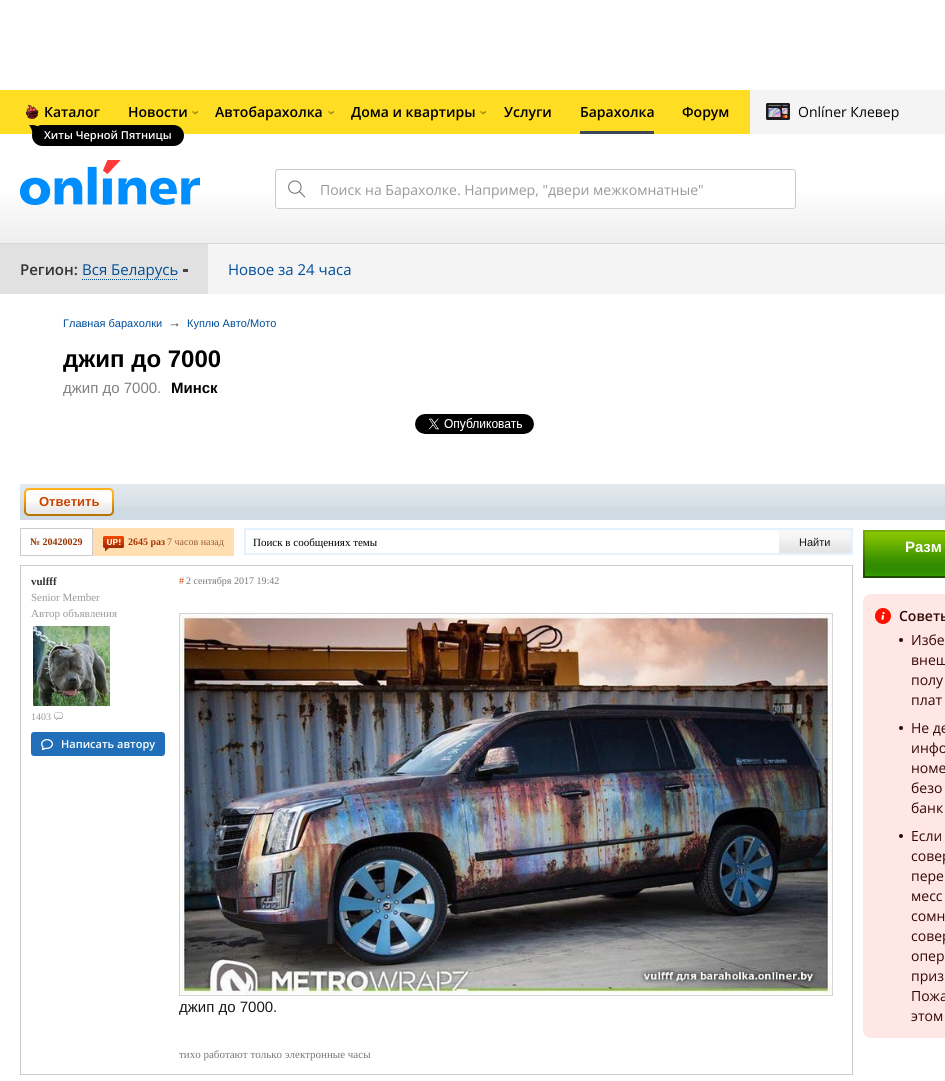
import math
import cairocffi as cairo

surface = cairo.ImageSurface(cairo.FORMAT_RGB24, 945, 1081)
cr = cairo.Context(surface)
options = cairo.FontOptions()
options.set_hint_metrics(cairo.HINT_METRICS_OFF)
options.set_hint_style(cairo.HINT_STYLE_NONE)
cr.set_font_options(options)
cr.set_miter_limit(4)


def use_color(code):
    cr.set_source_rgb(*(v / 255 for v in bytes.fromhex(code[-6:])))


def round_rect(x, y, w, h, r):
    cr.new_sub_path()
    for i, (u, v) in enumerate([(x + w - r, y + h - r), (x + r, y + h - r), (x + r, y + r), (x + w - r, y + r)]):
        cr.arc(u, v, r, i * math.pi / 2, (i + 1) * math.pi / 2)
    cr.close_path()


def picture(path, x, y, w, h):
    cr.save()
    cr.set_source_surface(cairo.ImageSurface.create_from_png(path), x, y)
    cr.rectangle(x, y, w, h)
    cr.fill()
    cr.restore()


use_color("#ffffff")
cr.paint()
gradient = cairo.LinearGradient(575, 90, 575, 280)
gradient.add_color_stop_rgba(0, 1, 1, 1, 1)
gradient.add_color_stop_rgba(0.5, 1, 1, 1, 1)
gradient.add_color_stop_rgba(1, 0.89, 0.89, 0.89, 1)
cr.set_source(gradient)
cr.rectangle(0, 193, 945, 50)
cr.fill()
use_color("#f4f4f4")
cr.rectangle(750, 90, 195, 44)
cr.fill()
use_color("#ffdd22")
cr.rectangle(0, 90, 750, 44)
cr.fill()
cr.select_font_face("Open Sans SemiBold")
cr.set_font_size(14)
use_color("#000000")
cr.move_to(44, 117)
cr.show_text("Каталог")
picture("img1.png", 26, 104, 13, 15)
round_rect(32, 125, 152, 21, 10.5)
cr.fill()
picture("img2.png", 29, 125, 13, 10)
cr.set_font_size(11)
use_color("#ffffff")
cr.move_to(44, 139)
cr.show_text("Хиты Черной Пятницы")
cr.set_font_size(14)
use_color("#000000")
cr.move_to(215, 117)
cr.show_text("Автобарахолка")
use_color("#998514")
cr.save()
cr.translate(335, 115)
cr.rotate(-90 * math.pi / 180)
cr.move_to(0, 0)
cr.show_text("‹")
cr.restore()
use_color("#000000")
cr.move_to(682, 117)
cr.show_text("Форум")
cr.move_to(128, 117)
cr.show_text("Новости")
use_color("#998514")
cr.save()
cr.translate(199, 115)
cr.rotate(-90 * math.pi / 180)
cr.move_to(0, 0)
cr.show_text("‹")
cr.restore()
use_color("#000000")
cr.move_to(351, 117)
cr.show_text("Дома и квартиры")
use_color("#998514")
cr.save()
cr.translate(487, 115)
cr.rotate(-90 * math.pi / 180)
cr.move_to(0, 0)
cr.show_text("‹")
cr.restore()
use_color("#000000")
cr.move_to(504, 117)
cr.show_text("Услуги")
cr.move_to(580, 117)
cr.show_text("Барахолка")
use_color("#3e4753")
cr.rectangle(580, 131, 74, 3)
cr.fill()
picture("img3.png", 766, 103, 24, 17)
cr.select_font_face("Open Sans")
use_color("#000000")
cr.move_to(798, 117)
cr.show_text("Onlíner Клевер")
picture("img4.png", 20, 160, 180, 45)
use_color("#ffffff")
round_rect(275, 169, 521, 40, 3)
cr.fill()
picture("img5.png", 288, 180, 18, 18)
round_rect(275.5, 169.5, 520, 39, 2.5)
use_color("#cccccc")
cr.set_line_width(1)
cr.stroke()
use_color("#999999")
cr.move_to(320, 195)
cr.show_text("Поиск на Барахолке. Например, \"двери межкомнатные\"")
use_color("#d8d8d8")
cr.rectangle(0, 243, 945, 1)
cr.fill()
use_color("#f4f4f4")
cr.rectangle(208, 244, 737, 50)
cr.fill()
use_color("#e1e1e1")
cr.rectangle(0, 244, 208, 50)
cr.fill()
cr.select_font_face("Open Sans SemiBold")
cr.set_font_size(15)
use_color("#333333")
cr.move_to(20, 275)
cr.show_text("Регион:")
cr.select_font_face("Open Sans")
use_color("#004d99")
cr.move_to(82, 275)
cr.show_text("Вся Беларусь")
cr.new_path()
cr.move_to(82, 279.5)
cr.line_to(178, 279.5)
cr.set_dash([1, 1])
cr.stroke()
use_color("#444444")
cr.rectangle(183, 269, 5, 3)
cr.fill()
use_color("#004d99")
cr.move_to(228, 275)
cr.show_text("Новое за 24 часа")
cr.select_font_face("Liberation Sans")
cr.set_font_size(11)
cr.move_to(63, 327)
cr.show_text("Главная барахолки")
cr.set_font_size(13)
use_color("#333333")
cr.move_to(168, 327)
cr.show_text("→")
cr.set_font_size(11)
use_color("#004d99")
cr.move_to(187, 327)
cr.show_text("Куплю Авто/Мото")
cr.select_font_face("Liberation Sans", cairo.FONT_SLANT_NORMAL, cairo.FONT_WEIGHT_BOLD)
cr.set_font_size(24)
use_color("#000000")
cr.move_to(63, 367)
cr.show_text("джип до 7000")
cr.select_font_face("Liberation Sans")
cr.set_font_size(15)
use_color("#808080")
cr.move_to(63, 393)
cr.show_text("джип до 7000.")
cr.select_font_face("Liberation Sans", cairo.FONT_SLANT_NORMAL, cairo.FONT_WEIGHT_BOLD)
use_color("#000000")
cr.move_to(171, 393)
cr.show_text("Минск")
picture("img6.png", 415, 414, 119, 20)
use_color("#d0dae2")
cr.rectangle(20, 507, 925, 13)
cr.fill()
picture("img7.png", 20, 484, 925, 23)
picture("img8.png", 24, 488, 7, 28)
picture("img9.png", 31, 488, 83, 28)
cr.set_font_size(13)
use_color("#cb4300")
cr.move_to(39, 506)
cr.show_text("Ответить")
cr.rectangle(20.5, 528.5, 72, 27)
use_color("#cccccc")
cr.set_dash([])
cr.stroke()
cr.select_font_face("Liberation Serif", cairo.FONT_SLANT_NORMAL, cairo.FONT_WEIGHT_BOLD)
cr.set_font_size(10)
use_color("#993300")
cr.move_to(30, 545)
cr.show_text("№ 20420029")
use_color("#ffdeb2")
cr.rectangle(93, 528, 141, 28)
cr.fill()
picture("img10.png", 103, 536, 21, 15)
use_color("#a73300")
cr.move_to(128, 545)
cr.show_text("2645 раз")
cr.select_font_face("Liberation Serif")
use_color("#995c3d")
cr.move_to(167, 545)
cr.show_text("7 часов назад")
use_color("#e4f2ff")
cr.rectangle(244, 528, 609, 27)
cr.fill()
use_color("#ffffff")
cr.rectangle(246, 530, 533, 23)
cr.fill()
cr.set_font_size(11)
use_color("#000000")
cr.move_to(253, 546)
cr.show_text("Поиск в сообщениях темы")
gradient = cairo.LinearGradient(815, 530, 815, 553)
gradient.add_color_stop_rgba(0, 0.973, 0.973, 0.973, 1)
gradient.add_color_stop_rgba(0.28, 0.965, 0.965, 0.965, 1)
gradient.add_color_stop_rgba(0.78, 0.906, 0.906, 0.906, 1)
gradient.add_color_stop_rgba(1, 0.902, 0.898, 0.902, 1)
cr.set_source(gradient)
cr.rectangle(779, 530, 72, 23)
cr.fill()
cr.select_font_face("Liberation Sans")
use_color("#1a1a1a")
cr.move_to(799, 546)
cr.show_text("Найти")
cr.rectangle(20.5, 565.5, 832, 509)
use_color("#cccccc")
cr.stroke()
cr.select_font_face("Liberation Serif", cairo.FONT_SLANT_NORMAL, cairo.FONT_WEIGHT_BOLD)
use_color("#333333")
cr.move_to(31, 585)
cr.show_text("vulfff")
cr.select_font_face("Liberation Serif")
use_color("#999999")
cr.move_to(31, 601)
cr.show_text("Senior Member")
cr.move_to(31, 617)
cr.show_text("Автор объявления")
picture("img11.png", 33, 626, 77, 80)
cr.set_font_size(10)
cr.move_to(31, 720)
cr.show_text("1403")
picture("img12.png", 54, 712, 9, 8)
use_color("#216fb8")
round_rect(31, 732, 134, 24, 3)
cr.fill()
picture("img13.png", 41, 739, 12, 11)
cr.select_font_face("Open Sans SemiBold")
cr.set_font_size(11)
use_color("#ffffff")
cr.move_to(61, 748)
cr.show_text("Написать автору")
cr.select_font_face("Liberation Serif")
cr.set_font_size(10)
use_color("#cb4300")
cr.move_to(179, 584)
cr.show_text("#")
use_color("#777777")
cr.move_to(186, 584)
cr.show_text("2 сентября 2017 19:42")
cr.rectangle(179.5, 613.5, 653, 382)
use_color("#d4d4d4")
cr.stroke()
picture("img14.png", 180, 614, 652, 381)
cr.save()
cr.rectangle(179, 996, 652, 38)
cr.clip()
cr.select_font_face("Liberation Sans")
cr.set_font_size(15)
use_color("#1a1a1a")
cr.move_to(179, 1012)
cr.show_text("джип до 7000.")
cr.restore()
cr.set_font_size(11)
use_color("#777777")
cr.move_to(179, 1058)
cr.show_text("тихо работают только электронные часы")
gradient = cairo.LinearGradient(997, 530, 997, 578)
gradient.add_color_stop_rgba(0, 0.467, 0.675, 0, 1)
gradient.add_color_stop_rgba(0.26, 0.392, 0.592, 0, 1)
gradient.add_color_stop_rgba(0.72, 0.192, 0.38, 0, 1)
gradient.add_color_stop_rgba(1, 0.106, 0.286, 0, 1)
cr.set_source(gradient)
cr.rectangle(863, 530, 82, 48)
cr.fill()
gradient = cairo.LinearGradient(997, 532, 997, 576)
gradient.add_color_stop_rgba(0, 0.541, 0.78, 0, 1)
gradient.add_color_stop_rgba(0.16, 0.478, 0.737, 0, 1)
gradient.add_color_stop_rgba(0.56, 0.267, 0.596, 0, 1)
gradient.add_color_stop_rgba(0.74, 0.196, 0.549, 0, 1)
gradient.add_color_stop_rgba(0.86, 0.188, 0.545, 0, 1)
gradient.add_color_stop_rgba(0.93, 0.188, 0.573, 0, 1)
gradient.add_color_stop_rgba(1, 0.22, 0.604, 0, 1)
cr.set_source(gradient)
cr.rectangle(865, 532, 80, 44)
cr.fill()
cr.select_font_face("Liberation Sans", cairo.FONT_SLANT_NORMAL, cairo.FONT_WEIGHT_BOLD)
cr.set_font_size(15)
use_color("#ffffff")
cr.move_to(905, 552)
cr.show_text("Разм")
use_color("#ffe7e6")
round_rect(863, 594, 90, 444, 8)
cr.fill()
picture("img15.png", 875, 608, 16, 16)
cr.select_font_face("Open Sans SemiBold")
cr.set_font_size(14)
use_color("#330704")
cr.move_to(899, 621)
cr.show_text("Советы")
cr.new_path()
cr.arc(901, 640, 2, 0, 2 * math.pi)
cr.fill()
cr.select_font_face("Open Sans")
cr.move_to(911, 645)
cr.show_text("Избе")
cr.move_to(911, 665)
cr.show_text("внеш")
cr.move_to(911, 685)
cr.show_text("полу")
cr.move_to(911, 705)
cr.show_text("плат")
cr.new_path()
cr.arc(901, 728, 2, 0, 2 * math.pi)
cr.fill()
cr.move_to(911, 733)
cr.show_text("Не де")
cr.move_to(911, 753)
cr.show_text("инфо")
cr.move_to(911, 773)
cr.show_text("номе")
cr.move_to(911, 793)
cr.show_text("безо")
cr.move_to(911, 813)
cr.show_text("банк")
cr.new_path()
cr.arc(901, 836, 2, 0, 2 * math.pi)
cr.fill()
cr.move_to(911, 841)
cr.show_text("Если")
cr.move_to(911, 861)
cr.show_text("совер")
cr.move_to(911, 881)
cr.show_text("пере")
cr.move_to(911, 901)
cr.show_text("месс")
cr.move_to(911, 921)
cr.show_text("сомн")
cr.move_to(911, 941)
cr.show_text("совер")
cr.move_to(911, 961)
cr.show_text("опер")
cr.move_to(911, 981)
cr.show_text("приз")
cr.move_to(911, 1001)
cr.show_text("Пожа")
cr.move_to(911, 1021)
cr.show_text("этом")
surface.write_to_png("result.png")
